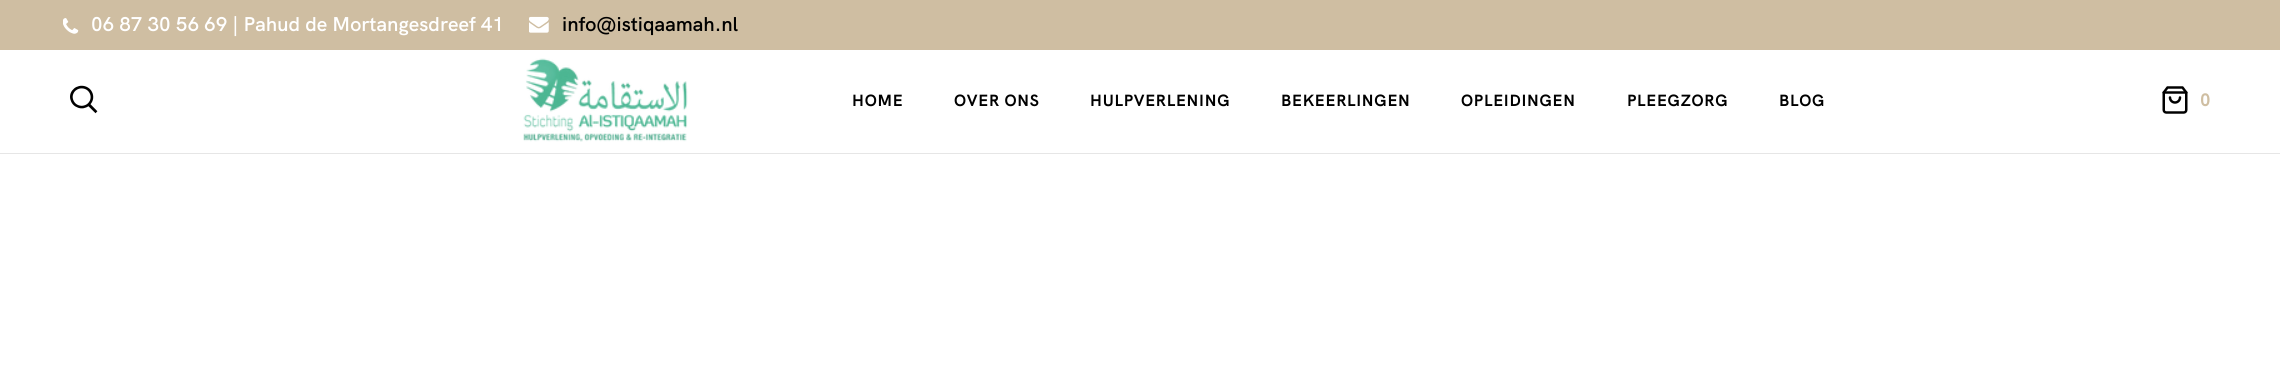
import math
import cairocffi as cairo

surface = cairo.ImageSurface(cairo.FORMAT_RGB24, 2280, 389)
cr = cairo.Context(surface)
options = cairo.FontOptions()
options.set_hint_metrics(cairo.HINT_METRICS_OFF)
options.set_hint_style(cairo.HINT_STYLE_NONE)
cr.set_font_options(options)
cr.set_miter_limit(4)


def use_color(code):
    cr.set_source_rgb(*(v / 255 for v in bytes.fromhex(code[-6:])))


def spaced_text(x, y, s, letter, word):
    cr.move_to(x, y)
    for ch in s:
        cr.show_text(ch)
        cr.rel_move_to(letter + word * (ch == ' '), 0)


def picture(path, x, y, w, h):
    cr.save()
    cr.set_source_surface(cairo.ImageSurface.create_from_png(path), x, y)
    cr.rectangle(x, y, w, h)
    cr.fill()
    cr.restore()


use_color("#ffffff")
cr.paint()
use_color("#e6e6e6")
cr.rectangle(0, 153, 2280, 1)
cr.fill()
use_color("#cfbea2")
cr.rectangle(0, 0, 2280, 50)
cr.fill()
picture("img1.png", 63, 18, 16, 16)
cr.select_font_face("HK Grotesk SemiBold")
cr.set_font_size(20)
use_color("#ffffff")
cr.move_to(91, 31)
cr.show_text("06 87 30 56 69 | Pahud de Mortangesdreef 41")
picture("img2.png", 529, 16, 20, 17)
use_color("#000000")
cr.move_to(562, 31)
cr.show_text("info@istiqaamah.nl")
picture("img3.png", 70, 85, 28, 29)
picture("img4.png", 523, 58, 165, 84)
cr.select_font_face("HK Grotesk", cairo.FONT_SLANT_NORMAL, cairo.FONT_WEIGHT_BOLD)
cr.set_font_size(16.25)
spaced_text(852, 106, "HOME", 0.75, 0)
spaced_text(954, 106, "OVER ONS", 0.75, 0)
spaced_text(1090, 106, "HULPVERLENING", 0.75, 0)
spaced_text(1281, 106, "BEKEERLINGEN", 0.75, 0)
spaced_text(1461, 106, "OPLEIDINGEN", 0.75, 0)
spaced_text(1627, 106, "PLEEGZORG", 0.75, 0)
spaced_text(1779, 106, "BLOG", 0.75, 0)
picture("img5.png", 2162, 86, 26, 28)
cr.set_font_size(18)
use_color("#cfbea2")
spaced_text(2200, 106, "0", 1, 0)
surface.write_to_png("result.png")
